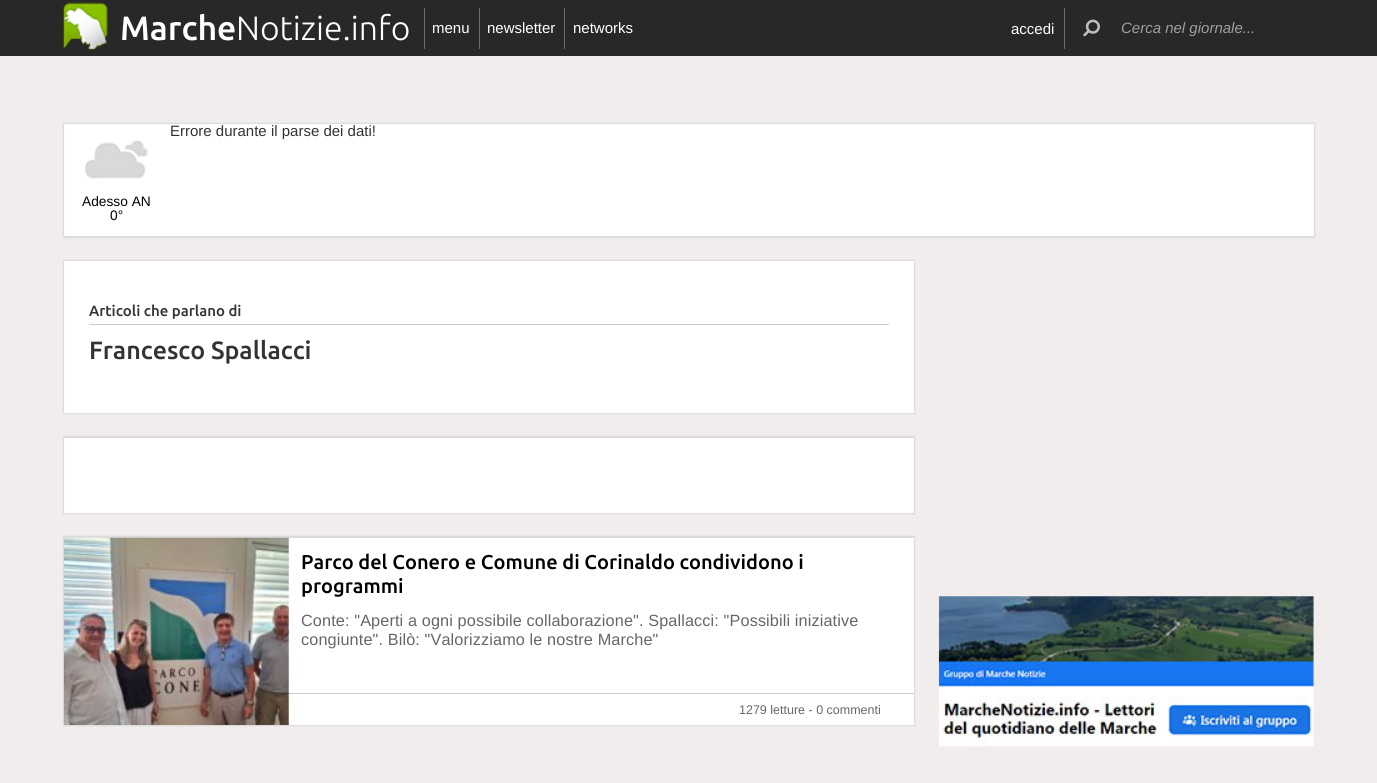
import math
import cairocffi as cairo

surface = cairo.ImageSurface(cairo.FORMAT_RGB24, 1377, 783)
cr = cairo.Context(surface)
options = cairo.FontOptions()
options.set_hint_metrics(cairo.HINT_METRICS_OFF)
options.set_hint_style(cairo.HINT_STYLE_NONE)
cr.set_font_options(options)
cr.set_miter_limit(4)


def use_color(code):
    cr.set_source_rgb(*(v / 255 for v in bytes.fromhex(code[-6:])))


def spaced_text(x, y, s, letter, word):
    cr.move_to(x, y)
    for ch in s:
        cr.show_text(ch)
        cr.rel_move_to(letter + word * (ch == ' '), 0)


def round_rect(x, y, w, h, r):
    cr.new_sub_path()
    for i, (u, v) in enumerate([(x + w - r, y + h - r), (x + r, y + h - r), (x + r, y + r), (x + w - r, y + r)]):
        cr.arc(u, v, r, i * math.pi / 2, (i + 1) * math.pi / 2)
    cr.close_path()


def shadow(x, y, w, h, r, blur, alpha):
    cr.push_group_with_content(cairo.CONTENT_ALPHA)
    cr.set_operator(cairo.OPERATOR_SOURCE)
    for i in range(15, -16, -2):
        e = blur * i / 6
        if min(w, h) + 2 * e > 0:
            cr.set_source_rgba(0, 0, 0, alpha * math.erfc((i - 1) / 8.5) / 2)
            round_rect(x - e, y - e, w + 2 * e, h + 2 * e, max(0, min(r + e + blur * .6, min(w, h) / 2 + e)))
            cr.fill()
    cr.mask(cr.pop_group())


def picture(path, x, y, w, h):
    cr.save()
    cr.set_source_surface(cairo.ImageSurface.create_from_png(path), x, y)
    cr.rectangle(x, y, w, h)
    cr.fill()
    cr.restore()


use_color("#f2eded")
cr.paint()
use_color("#282828")
cr.rectangle(0, 0, 1377, 56)
cr.fill()
picture("img1.png", 63, 2, 45, 49)
cr.select_font_face("Ubuntu Medium")
cr.set_font_size(33.75)
use_color("#ffffff")
cr.move_to(120, 40)
cr.show_text("Marche")
cr.select_font_face("Ubuntu Light")
cr.move_to(236, 40)
cr.show_text("Notizie.info")
use_color("#6d6d6d")
cr.rectangle(424, 8, 1, 41)
cr.fill()
cr.select_font_face("Liberation Sans")
cr.set_font_size(15)
use_color("#ffffff")
cr.move_to(432, 33)
cr.show_text("menu")
use_color("#6d6d6d")
cr.rectangle(479, 8, 1, 41)
cr.fill()
use_color("#ffffff")
cr.move_to(487, 33)
cr.show_text("newsletter")
use_color("#6d6d6d")
cr.rectangle(564, 8, 1, 41)
cr.fill()
use_color("#ffffff")
cr.move_to(573, 33)
cr.show_text("networks")
cr.move_to(1011, 34)
cr.show_text("accedi")
use_color("#6d6d6d")
cr.rectangle(1064, 8, 1, 41)
cr.fill()
picture("img2.png", 1083, 19, 17, 18)
cr.select_font_face("Liberation Sans", cairo.FONT_SLANT_ITALIC)
use_color("#a0a0a0")
cr.move_to(1121, 33)
cr.show_text("Cerca nel giornale...")
use_color("#d1d1d1")
shadow(63, 123, 1252, 115, 0, 0.5, 0.75)
use_color("#ffffff")
cr.rectangle(64, 124, 1250, 112)
cr.fill()
cr.select_font_face("Liberation Sans")
use_color("#333333")
cr.move_to(170, 136)
cr.show_text("Errore durante il parse dei dati!")
picture("img3.png", 85, 140, 63, 39)
cr.set_font_size(13.75)
use_color("#000000")
cr.move_to(82, 206)
cr.show_text("Adesso AN")
cr.move_to(110, 220)
cr.show_text("0°")
use_color("#d1d1d1")
shadow(63, 260, 852, 154, 0, 0.5, 0.75)
use_color("#ffffff")
cr.rectangle(64, 261, 850, 152)
cr.fill()
use_color("#cccccc")
cr.rectangle(89, 324, 800, 1)
cr.fill()
cr.select_font_face("Ubuntu Medium")
cr.set_font_size(15)
use_color("#333333")
cr.move_to(89, 316)
cr.show_text("Articoli che parlano di")
cr.set_font_size(25)
cr.move_to(89, 359)
cr.show_text("Francesco Spallacci")
use_color("#d1d1d1")
shadow(63, 436, 852, 78, 0, 0.5, 0.75)
use_color("#ffffff")
cr.rectangle(64, 438, 850, 75)
cr.fill()
use_color("#d1d1d1")
shadow(63, 536, 852, 190, 0, 0.5, 0.75)
use_color("#ffffff")
cr.rectangle(288, 538, 626, 187)
cr.fill()
picture("img4.png", 63, 537, 226, 188)
cr.set_font_size(20)
use_color("#000000")
cr.move_to(301, 569)
cr.show_text("Parco del Conero e Comune di Corinaldo condividono i")
cr.move_to(301, 593)
cr.show_text("programmi")
cr.select_font_face("Liberation Sans")
cr.set_font_size(16.25)
use_color("#666666")
spaced_text(301, 626, "Conte: \"Aperti a ogni possibile collaborazione\". Spallacci: \"Possibili iniziative", 0.12, 0)
spaced_text(301, 645, "congiunte\". Bilò: \"Valorizziamo le nostre Marche\"", 0.12, 0)
use_color("#cccccc")
cr.rectangle(289, 693, 625, 1)
cr.fill()
cr.set_font_size(12.5)
use_color("#666666")
cr.move_to(739, 714)
cr.show_text("1279 letture - 0 commenti")
picture("img5.png", 938, 596, 376, 151)
surface.write_to_png("result.png")
